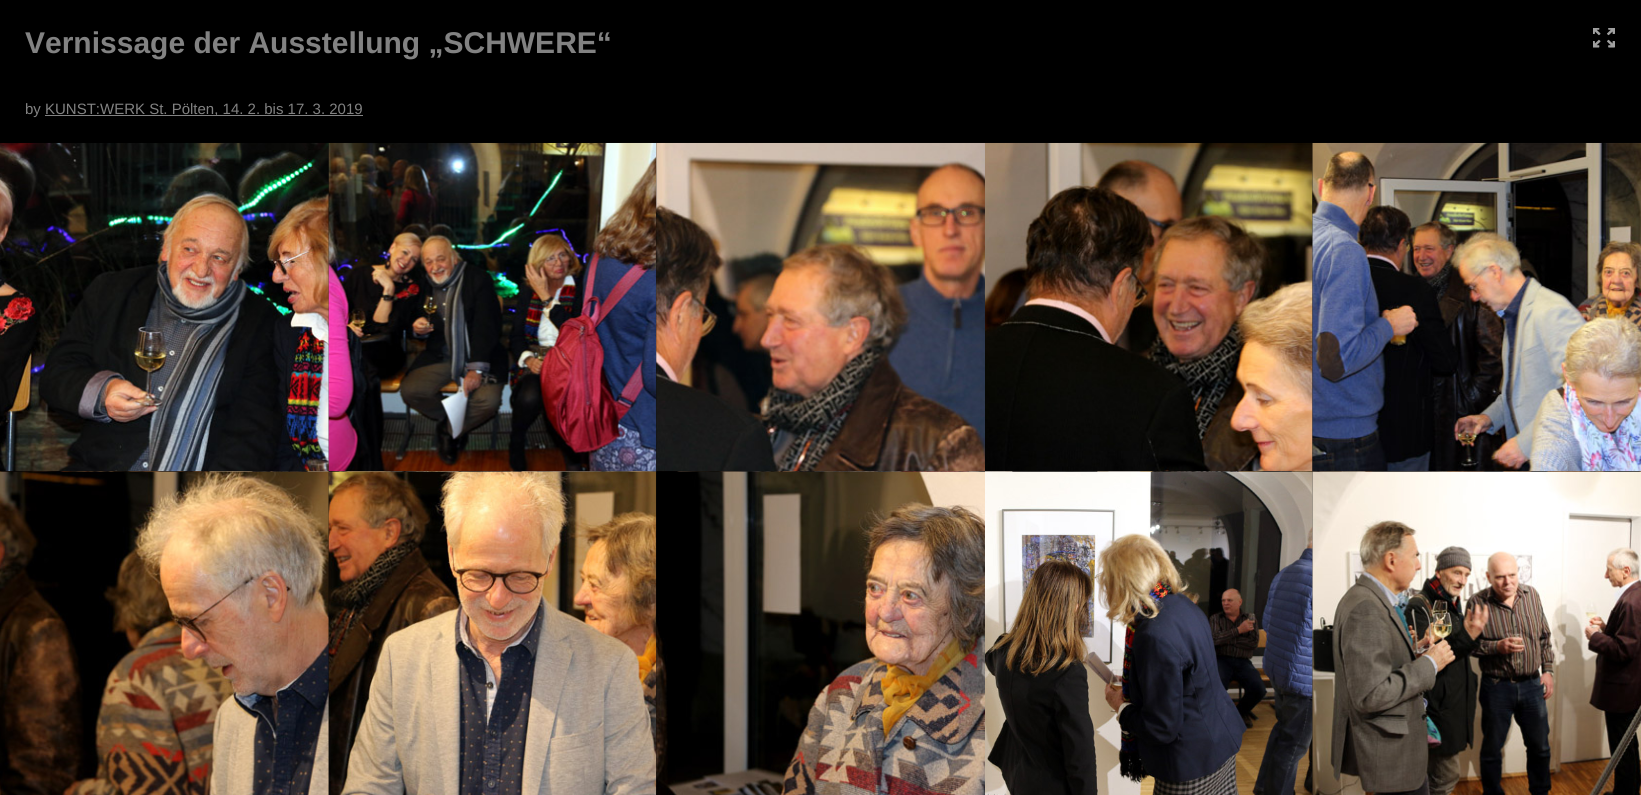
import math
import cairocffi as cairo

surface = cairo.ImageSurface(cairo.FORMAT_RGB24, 1641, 795)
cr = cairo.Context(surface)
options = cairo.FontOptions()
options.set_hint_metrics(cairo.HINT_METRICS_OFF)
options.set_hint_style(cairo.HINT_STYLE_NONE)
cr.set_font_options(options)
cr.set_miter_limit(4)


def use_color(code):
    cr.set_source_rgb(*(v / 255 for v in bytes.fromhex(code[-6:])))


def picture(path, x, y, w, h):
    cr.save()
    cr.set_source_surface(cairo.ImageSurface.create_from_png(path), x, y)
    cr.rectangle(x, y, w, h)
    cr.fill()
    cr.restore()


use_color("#000000")
cr.paint()
cr.select_font_face("Liberation Sans", cairo.FONT_SLANT_NORMAL, cairo.FONT_WEIGHT_BOLD)
cr.set_font_size(30)
use_color("#828282")
cr.move_to(25, 53)
cr.show_text("Vernissage der Ausstellung „SCHWERE“")
cr.select_font_face("Liberation Sans")
cr.set_font_size(15)
cr.move_to(25, 114)
cr.show_text("by")
cr.rectangle(45, 115, 318, 1)
cr.fill()
cr.move_to(45, 114)
cr.show_text("KUNST:WERK St. Pölten, 14. 2. bis 17. 3. 2019")
picture("img1.png", 1593, 28, 22, 20)
picture("img2.png", 0, 142, 329, 330)
picture("img3.png", 328, 142, 329, 330)
picture("img4.png", 656, 142, 329, 330)
picture("img5.png", 985, 142, 328, 330)
picture("img6.png", 1312, 142, 329, 330)
cr.set_source_rgba(0, 0, 0, 0.9)
cr.rectangle(0, 142, 1641, 1)
cr.fill()
picture("img7.png", 0, 471, 329, 324)
picture("img8.png", 328, 471, 329, 324)
picture("img9.png", 656, 471, 329, 324)
picture("img10.png", 985, 471, 328, 324)
picture("img11.png", 1312, 471, 329, 324)
surface.write_to_png("result.png")
